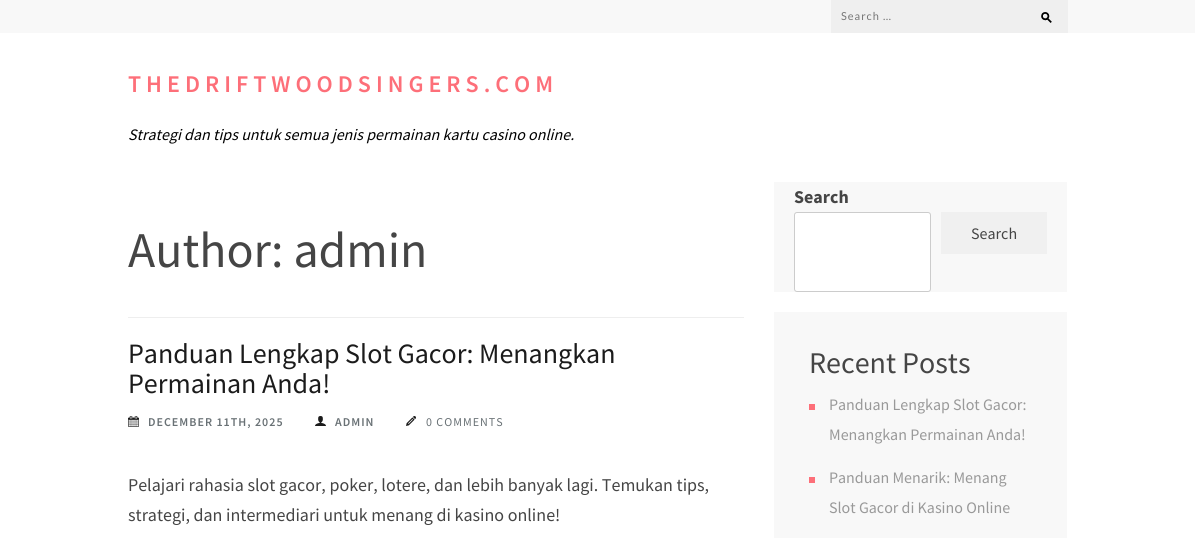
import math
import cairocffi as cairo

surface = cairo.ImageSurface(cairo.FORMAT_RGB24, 1195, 538)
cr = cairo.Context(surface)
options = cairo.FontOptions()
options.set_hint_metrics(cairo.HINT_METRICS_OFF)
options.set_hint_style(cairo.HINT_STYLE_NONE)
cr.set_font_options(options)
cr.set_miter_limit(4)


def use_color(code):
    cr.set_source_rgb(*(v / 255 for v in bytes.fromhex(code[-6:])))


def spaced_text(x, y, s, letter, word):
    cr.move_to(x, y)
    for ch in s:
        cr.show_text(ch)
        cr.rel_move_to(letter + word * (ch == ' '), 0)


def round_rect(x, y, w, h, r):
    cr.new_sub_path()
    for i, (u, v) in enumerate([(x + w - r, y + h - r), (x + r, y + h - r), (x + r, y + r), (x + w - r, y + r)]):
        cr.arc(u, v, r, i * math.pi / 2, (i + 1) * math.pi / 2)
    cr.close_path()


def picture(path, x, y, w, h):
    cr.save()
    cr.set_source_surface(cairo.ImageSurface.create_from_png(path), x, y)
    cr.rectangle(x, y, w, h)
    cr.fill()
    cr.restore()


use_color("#ffffff")
cr.paint()
use_color("#f8f8f8")
cr.rectangle(0, 0, 1195, 33)
cr.fill()
use_color("#efefef")
cr.rectangle(831, 0, 237, 33)
cr.fill()
cr.select_font_face("Lato")
cr.set_font_size(11)
use_color("#757575")
spaced_text(841, 20, "Search …", 1, 0)
picture("img1.png", 1041, 12, 11, 11)
cr.select_font_face("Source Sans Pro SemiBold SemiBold")
cr.set_font_size(24)
use_color("#fd6f79")
spaced_text(128, 92, "THEDRIFTWOODSINGERS.COM", 5, 0)
cr.select_font_face("Source Sans Pro", cairo.FONT_SLANT_ITALIC)
cr.set_font_size(16)
use_color("#000000")
cr.move_to(128, 140)
cr.show_text("Strategi dan tips untuk semua jenis permainan kartu casino online.")
use_color("#eeeeee")
cr.rectangle(128, 317, 616, 1)
cr.fill()
cr.select_font_face("Source Sans Pro")
cr.set_font_size(50)
use_color("#454545")
cr.move_to(128, 267)
cr.show_text("Author: admin")
cr.set_font_size(28)
use_color("#1b1b1b")
cr.move_to(128, 363)
cr.show_text("Panduan Lengkap Slot Gacor: Menangkan")
cr.move_to(128, 393)
cr.show_text("Permainan Anda!")
picture("img2.png", 128, 416, 11, 11)
cr.select_font_face("Source Sans Pro SemiBold SemiBold")
cr.set_font_size(12)
use_color("#697175")
spaced_text(148, 426, "DECEMBER 11TH, 2025", 1, 0)
picture("img3.png", 315, 416, 11, 10)
spaced_text(335, 426, "ADMIN", 1, 0)
picture("img4.png", 406, 416, 10, 10)
cr.select_font_face("Source Sans Pro")
spaced_text(426, 426, "0 COMMENTS", 1, 0)
cr.set_font_size(18)
use_color("#454545")
cr.move_to(128, 491)
cr.show_text("Pelajari rahasia slot gacor, poker, lotere, dan lebih banyak lagi. Temukan tips,")
cr.move_to(128, 521)
cr.show_text("strategi, dan intermediari untuk menang di kasino online!")
use_color("#f8f8f8")
cr.rectangle(774, 182, 293, 110)
cr.fill()
cr.select_font_face("Source Sans Pro", cairo.FONT_SLANT_NORMAL, cairo.FONT_WEIGHT_BOLD)
use_color("#454545")
cr.move_to(794, 203)
cr.show_text("Search")
use_color("#ffffff")
round_rect(794.5, 212.5, 136, 79, 2.5)
cr.fill_preserve()
use_color("#cccccc")
cr.set_line_width(1)
cr.stroke()
use_color("#f0f0f0")
cr.rectangle(941, 212, 106, 42)
cr.fill()
cr.select_font_face("Source Sans Pro")
cr.set_font_size(16)
use_color("#454545")
cr.move_to(971, 239)
cr.show_text("Search")
use_color("#f8f8f8")
cr.rectangle(774, 312, 293, 226)
cr.fill()
cr.set_font_size(30)
use_color("#454545")
cr.move_to(809, 373)
cr.show_text("Recent Posts")
use_color("#fd6f79")
cr.rectangle(809, 404, 6, 6)
cr.fill()
cr.set_font_size(16)
use_color("#999999")
cr.move_to(829, 410)
cr.show_text("Panduan Lengkap Slot Gacor:")
cr.move_to(829, 440)
cr.show_text("Menangkan Permainan Anda!")
use_color("#fd6f79")
cr.rectangle(809, 477, 6, 6)
cr.fill()
use_color("#999999")
cr.move_to(829, 483)
cr.show_text("Panduan Menarik: Menang")
cr.move_to(829, 513)
cr.show_text("Slot Gacor di Kasino Online")
surface.write_to_png("result.png")
